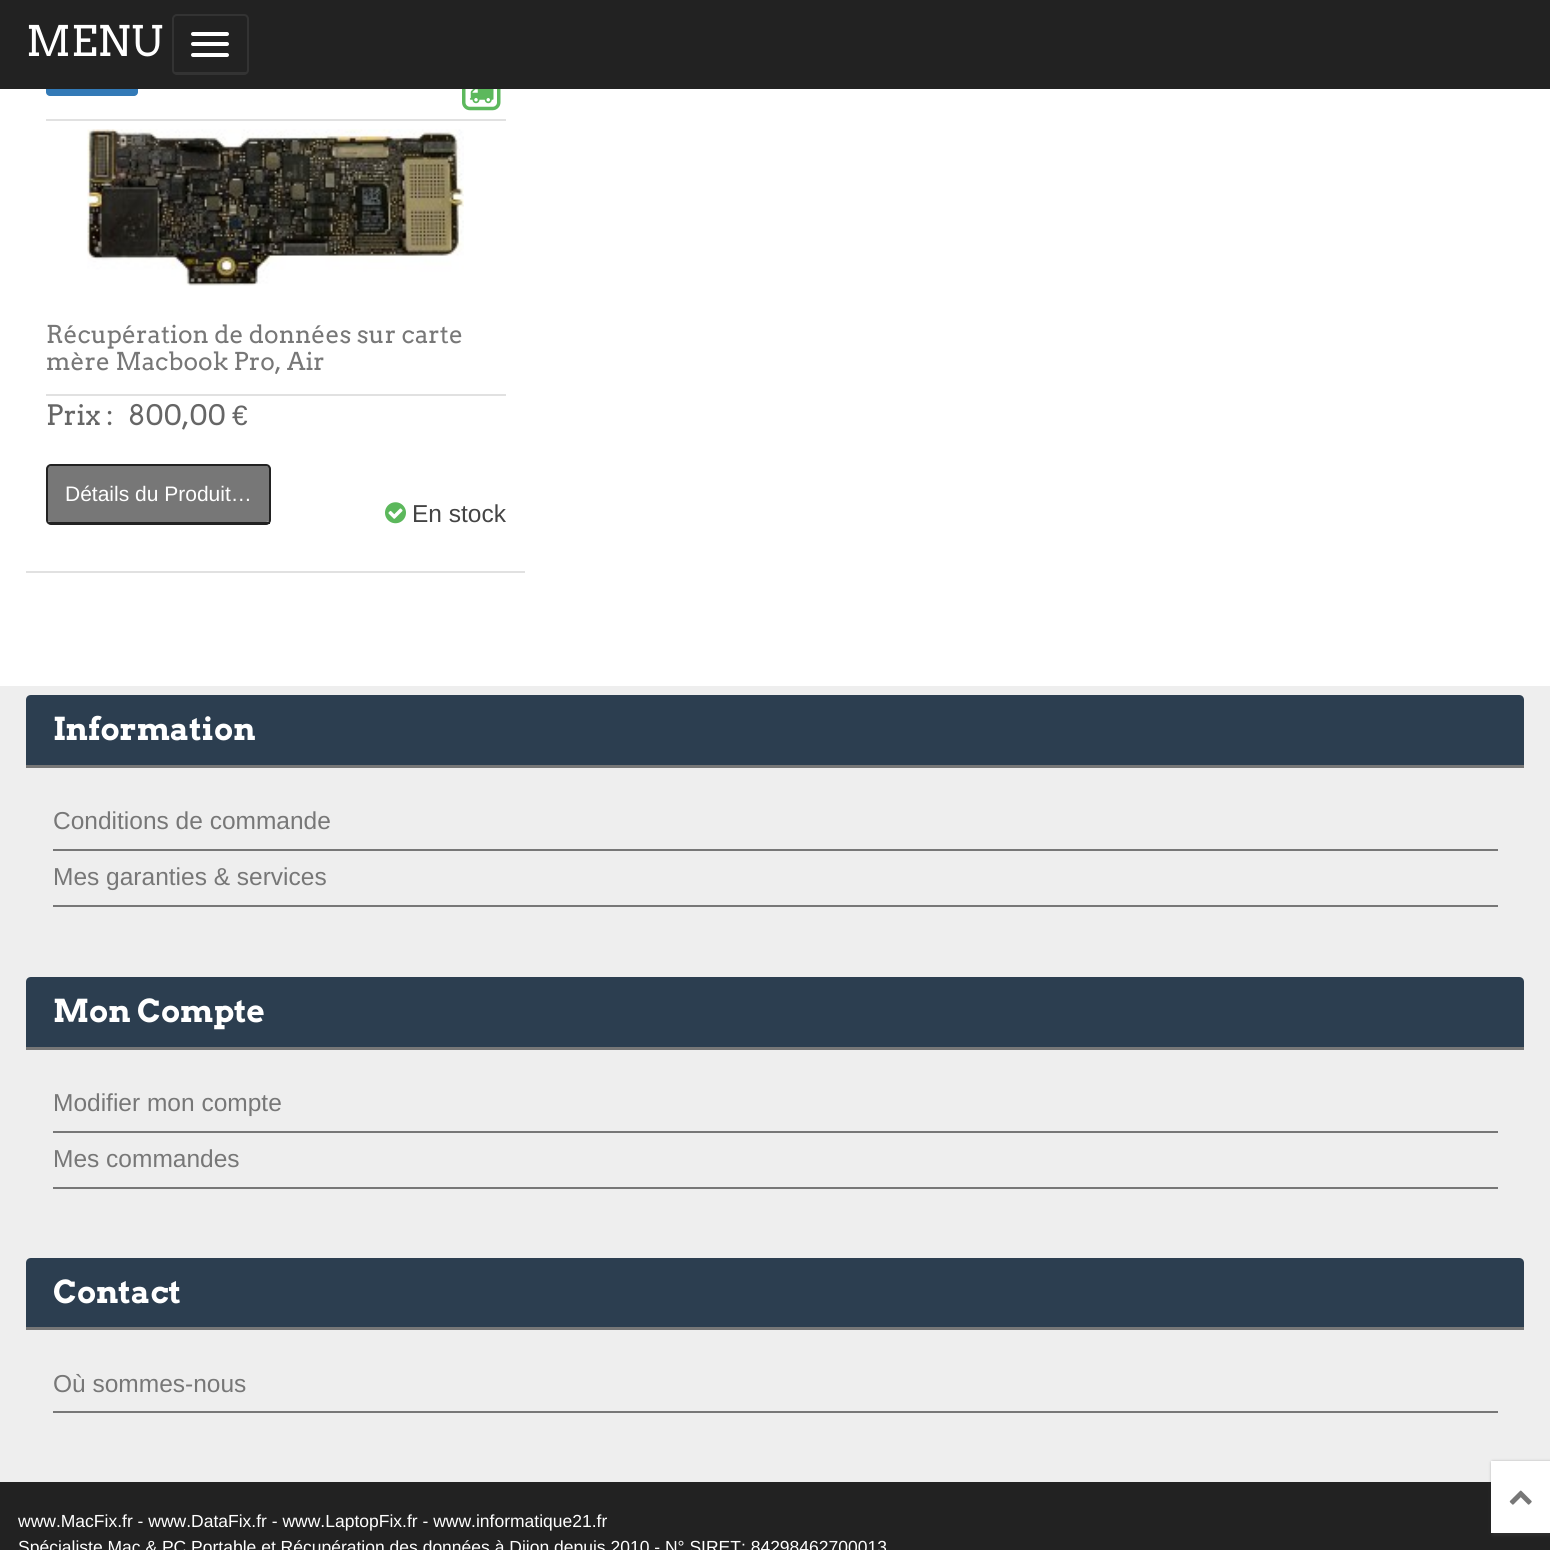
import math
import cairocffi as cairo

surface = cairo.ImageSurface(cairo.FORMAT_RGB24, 1550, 1550)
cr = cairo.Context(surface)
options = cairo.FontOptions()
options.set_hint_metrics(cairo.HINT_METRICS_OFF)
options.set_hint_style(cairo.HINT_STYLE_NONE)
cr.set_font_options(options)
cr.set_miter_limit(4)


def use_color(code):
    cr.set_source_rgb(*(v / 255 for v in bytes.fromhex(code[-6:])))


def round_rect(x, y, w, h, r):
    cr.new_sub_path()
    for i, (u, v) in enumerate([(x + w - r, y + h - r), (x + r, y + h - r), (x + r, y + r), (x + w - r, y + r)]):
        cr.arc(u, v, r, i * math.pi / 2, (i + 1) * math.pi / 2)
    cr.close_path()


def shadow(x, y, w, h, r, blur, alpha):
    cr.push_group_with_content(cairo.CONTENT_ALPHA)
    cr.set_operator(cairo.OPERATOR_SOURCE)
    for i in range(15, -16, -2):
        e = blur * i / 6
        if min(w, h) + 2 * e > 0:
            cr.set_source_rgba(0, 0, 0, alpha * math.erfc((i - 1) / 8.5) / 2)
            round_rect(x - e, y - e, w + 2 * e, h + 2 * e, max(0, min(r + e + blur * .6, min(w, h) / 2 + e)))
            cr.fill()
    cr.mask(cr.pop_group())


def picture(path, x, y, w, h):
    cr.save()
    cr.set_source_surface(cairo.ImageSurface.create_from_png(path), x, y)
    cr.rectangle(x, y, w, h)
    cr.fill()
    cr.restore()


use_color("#ffffff")
cr.paint()
use_color("#337ab7")
round_rect(46, 68, 92, 28, 4)
cr.fill()
use_color("#222222")
cr.rectangle(0, 0, 1550, 89)
cr.fill()
cr.select_font_face("Arvo")
cr.set_font_size(42)
use_color("#ffffff")
cr.move_to(26, 56)
cr.show_text("MENU")
round_rect(173, 15, 75, 59, 4)
use_color("#333333")
cr.stroke()
cr.rectangle(175, 72, 72, 1)
cr.fill()
use_color("#ffffff")
round_rect(191, 32, 38, 4, 2)
cr.fill()
round_rect(191, 42, 38, 4, 2)
cr.fill()
round_rect(191, 53, 38, 4, 2)
cr.fill()
use_color("#e1e1e1")
cr.rectangle(26, 571, 499, 2)
cr.fill()
cr.rectangle(46, 119, 460, 2)
cr.fill()
picture("img1.png", 462, 89, 39, 22)
picture("img2.png", 469, 89, 25, 15)
picture("img3.png", 87, 129, 377, 157)
cr.set_font_size(24.5)
use_color("#777777")
cr.move_to(46, 343)
cr.show_text("Récupération de données sur carte")
cr.move_to(46, 370)
cr.show_text("mère Macbook Pro, Air")
use_color("#e1e1e1")
cr.rectangle(46, 394, 460, 2)
cr.fill()
cr.set_font_size(28)
use_color("#666666")
cr.move_to(46, 425)
cr.show_text("Prix :")
cr.move_to(128, 425)
cr.show_text("800,00")
cr.select_font_face("Liberation Sans")
cr.move_to(232, 425)
cr.show_text("€")
use_color("#777777")
cr.new_path()
cr.move_to(51, 466)
cr.line_to(266, 466)
cr.curve_to(268, 466, 270, 467, 270, 469)
cr.line_to(270, 520)
cr.curve_to(270, 521, 268, 522, 266, 522)
cr.line_to(51, 522)
cr.curve_to(49, 522, 47, 521, 47, 520)
cr.line_to(47, 469)
cr.curve_to(47, 467, 49, 466, 51, 466)
cr.close_path()
cr.fill()
round_rect(47, 465, 223, 59, 4)
use_color("#222222")
cr.stroke()
cr.rectangle(49, 522, 221, 2)
cr.fill()
cr.set_font_size(21)
use_color("#ffffff")
cr.move_to(65, 501)
cr.show_text("Détails du Produit…")
picture("img4.png", 385, 502, 21, 22)
cr.set_font_size(24.5)
use_color("#444444")
cr.move_to(412, 522)
cr.show_text("En stock")
use_color("#eeeeee")
cr.rectangle(0, 686, 1550, 796)
cr.fill()
use_color("#2c3e50")
cr.new_path()
cr.move_to(31, 695)
cr.line_to(1519, 695)
cr.curve_to(1522, 695, 1524, 697, 1524, 700)
cr.line_to(1524, 768)
cr.line_to(26, 768)
cr.line_to(26, 700)
cr.curve_to(26, 697, 28, 695, 31, 695)
cr.close_path()
cr.fill()
use_color("#777777")
cr.rectangle(26, 765, 1498, 3)
cr.fill()
cr.select_font_face("Arvo", cairo.FONT_SLANT_NORMAL, cairo.FONT_WEIGHT_BOLD)
cr.set_font_size(31.5)
use_color("#ffffff")
cr.move_to(53, 740)
cr.show_text("Information")
use_color("#777777")
cr.rectangle(53, 849, 1445, 2)
cr.fill()
cr.select_font_face("Liberation Sans")
cr.set_font_size(24.5)
cr.move_to(53, 829)
cr.show_text("Conditions de commande")
cr.rectangle(53, 905, 1445, 2)
cr.fill()
cr.move_to(53, 885)
cr.show_text("Mes garanties & services")
use_color("#2c3e50")
cr.new_path()
cr.move_to(31, 977)
cr.line_to(1519, 977)
cr.curve_to(1522, 977, 1524, 979, 1524, 982)
cr.line_to(1524, 1050)
cr.line_to(26, 1050)
cr.line_to(26, 982)
cr.curve_to(26, 979, 28, 977, 31, 977)
cr.close_path()
cr.fill()
use_color("#777777")
cr.rectangle(26, 1047, 1498, 3)
cr.fill()
cr.select_font_face("Arvo", cairo.FONT_SLANT_NORMAL, cairo.FONT_WEIGHT_BOLD)
cr.set_font_size(31.5)
use_color("#ffffff")
cr.move_to(53, 1022)
cr.show_text("Mon Compte")
use_color("#777777")
cr.rectangle(53, 1131, 1445, 2)
cr.fill()
cr.select_font_face("Liberation Sans")
cr.set_font_size(24.5)
cr.move_to(53, 1111)
cr.show_text("Modifier mon compte")
cr.rectangle(53, 1187, 1445, 2)
cr.fill()
cr.move_to(53, 1167)
cr.show_text("Mes commandes")
use_color("#2c3e50")
cr.new_path()
cr.move_to(31, 1258)
cr.line_to(1519, 1258)
cr.curve_to(1522, 1258, 1524, 1260, 1524, 1263)
cr.line_to(1524, 1330)
cr.line_to(26, 1330)
cr.line_to(26, 1263)
cr.curve_to(26, 1260, 28, 1258, 31, 1258)
cr.close_path()
cr.fill()
use_color("#777777")
cr.rectangle(26, 1327, 1498, 3)
cr.fill()
cr.select_font_face("Arvo", cairo.FONT_SLANT_NORMAL, cairo.FONT_WEIGHT_BOLD)
cr.set_font_size(31.5)
use_color("#ffffff")
cr.move_to(53, 1303)
cr.show_text("Contact")
use_color("#777777")
cr.rectangle(53, 1411, 1445, 2)
cr.fill()
cr.select_font_face("Liberation Sans")
cr.set_font_size(24.5)
cr.move_to(53, 1392)
cr.show_text("Où sommes-nous")
use_color("#222222")
cr.rectangle(0, 1482, 1550, 68)
cr.fill()
cr.set_font_size(17.5)
use_color("#ffffff")
cr.move_to(18, 1527)
cr.show_text("www.MacFix.fr - www.DataFix.fr - www.LaptopFix.fr - www.informatique21.fr")
cr.move_to(18, 1553)
cr.show_text("Spécialiste Mac & PC Portable et Récupération des données à Dijon depuis 2010 - N° SIRET: 84298462700013")
use_color("#333333")
shadow(1493, 1463, 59, 72, 0, 2, 1)
use_color("#ffffff")
cr.rectangle(1491, 1461, 59, 72)
cr.fill()
picture("img5.png", 1509, 1490, 23, 15)
surface.write_to_png("result.png")
